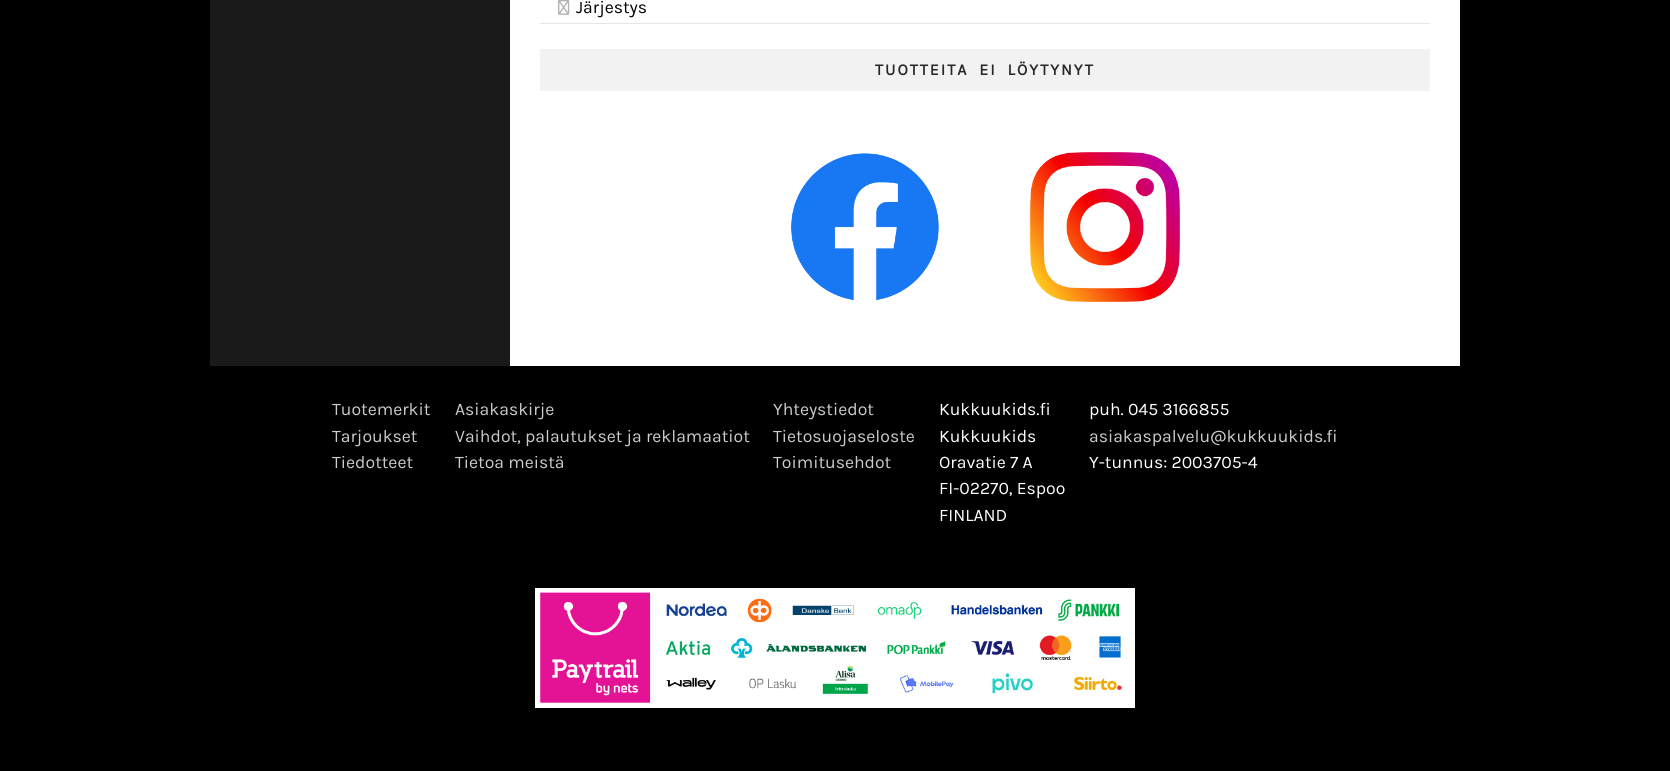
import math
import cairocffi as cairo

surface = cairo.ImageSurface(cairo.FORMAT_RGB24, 1670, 771)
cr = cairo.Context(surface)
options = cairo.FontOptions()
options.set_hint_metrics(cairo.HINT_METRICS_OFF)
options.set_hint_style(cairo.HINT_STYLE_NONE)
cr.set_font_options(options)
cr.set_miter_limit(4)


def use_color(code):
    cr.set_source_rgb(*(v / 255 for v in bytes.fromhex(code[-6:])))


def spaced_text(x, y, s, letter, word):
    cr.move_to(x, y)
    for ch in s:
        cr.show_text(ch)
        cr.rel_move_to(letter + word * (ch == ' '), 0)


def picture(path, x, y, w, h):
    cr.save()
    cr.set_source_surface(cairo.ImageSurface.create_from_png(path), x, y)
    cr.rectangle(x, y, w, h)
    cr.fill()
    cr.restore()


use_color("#000000")
cr.paint()
use_color("#1a1a1a")
cr.rectangle(210, 0, 300, 366)
cr.fill()
use_color("#ffffff")
cr.rectangle(510, 0, 950, 366)
cr.fill()
use_color("#e6e6e6")
cr.rectangle(540, 23, 890, 1)
cr.fill()
picture("img1.png", 558, 0, 12, 15)
cr.select_font_face("Karla")
cr.set_font_size(17.6)
use_color("#000000")
cr.move_to(576, 13)
cr.show_text("Järjestys")
use_color("#f2f2f2")
cr.rectangle(540, 49, 890, 42)
cr.fill()
cr.select_font_face("Karla", cairo.FONT_SLANT_NORMAL, cairo.FONT_WEIGHT_BOLD)
cr.set_font_size(16)
use_color("#282828")
spaced_text(875, 75, "TUOTTEITA EI LÖYTYNYT", 2, 5)
picture("img2.png", 791, 153, 148, 148)
picture("img3.png", 1030, 152, 150, 150)
cr.select_font_face("Karla")
cr.set_font_size(17.6)
use_color("#cccccc")
cr.move_to(332, 415)
cr.show_text("Tuotemerkit")
cr.move_to(332, 442)
cr.show_text("Tarjoukset")
cr.move_to(332, 468)
cr.show_text("Tiedotteet")
cr.move_to(455, 415)
cr.show_text("Asiakaskirje")
cr.move_to(455, 442)
cr.show_text("Vaihdot, palautukset ja reklamaatiot")
cr.move_to(455, 468)
cr.show_text("Tietoa meistä")
cr.move_to(773, 415)
cr.show_text("Yhteystiedot")
cr.move_to(773, 442)
cr.show_text("Tietosuojaseloste")
cr.move_to(773, 468)
cr.show_text("Toimitusehdot")
use_color("#ffffff")
cr.move_to(939, 415)
cr.show_text("Kukkuukids.fi")
cr.move_to(939, 442)
cr.show_text("Kukkuukids")
cr.move_to(939, 468)
cr.show_text("Oravatie 7 A")
cr.move_to(939, 494)
cr.show_text("FI-02270, Espoo")
cr.move_to(939, 521)
cr.show_text("FINLAND")
cr.move_to(1089, 415)
cr.show_text("puh. 045 3166855")
use_color("#cccccc")
cr.move_to(1089, 442)
cr.show_text("asiakaspalvelu@kukkuukids.fi")
use_color("#ffffff")
cr.move_to(1089, 468)
cr.show_text("Y-tunnus: 2003705-4")
picture("img4.png", 535, 588, 600, 120)
surface.write_to_png("result.png")
